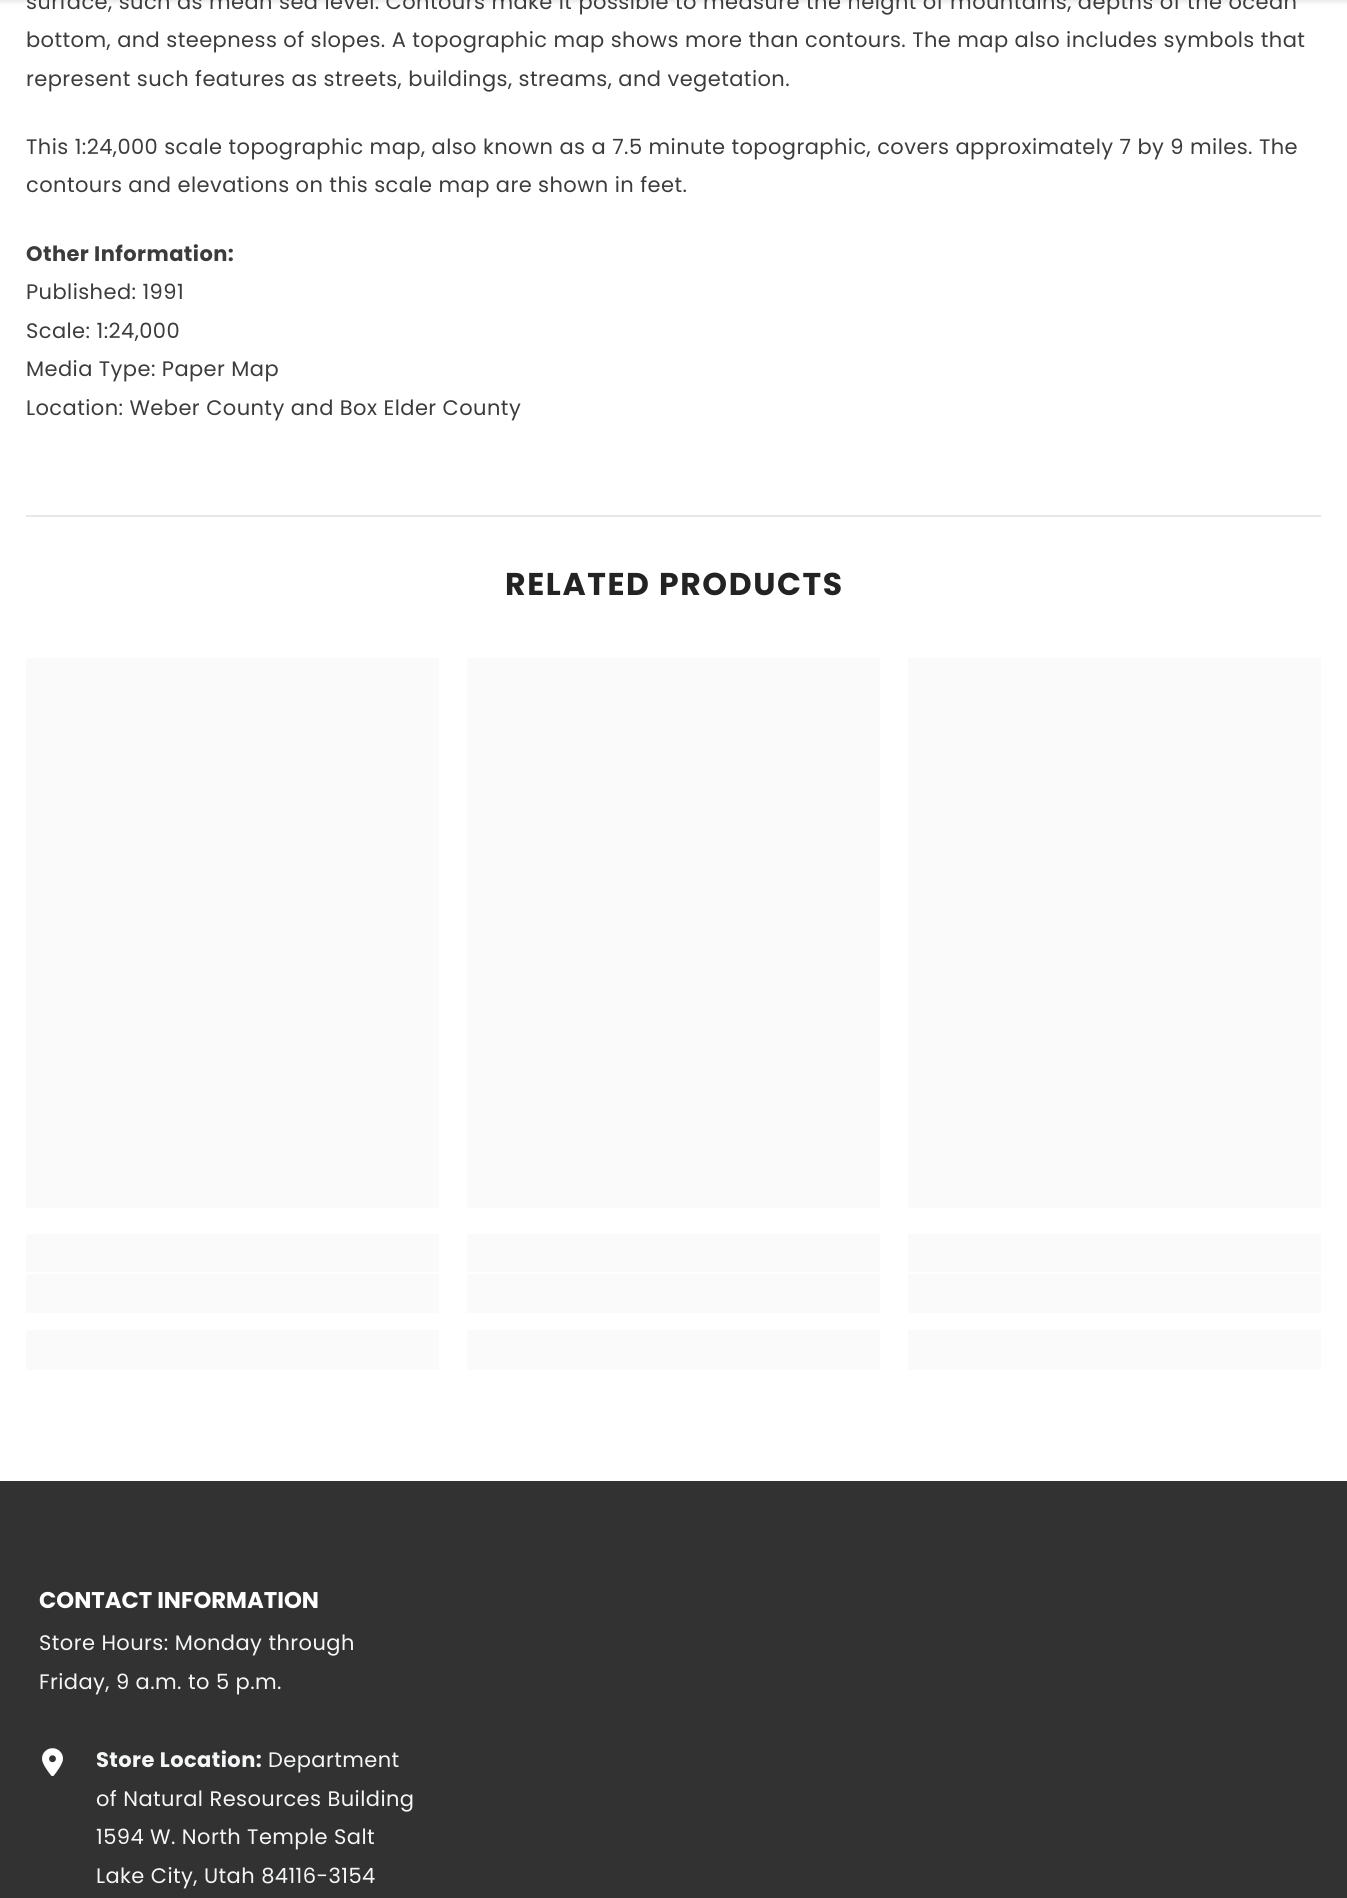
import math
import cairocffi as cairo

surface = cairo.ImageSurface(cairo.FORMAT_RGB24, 1347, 1898)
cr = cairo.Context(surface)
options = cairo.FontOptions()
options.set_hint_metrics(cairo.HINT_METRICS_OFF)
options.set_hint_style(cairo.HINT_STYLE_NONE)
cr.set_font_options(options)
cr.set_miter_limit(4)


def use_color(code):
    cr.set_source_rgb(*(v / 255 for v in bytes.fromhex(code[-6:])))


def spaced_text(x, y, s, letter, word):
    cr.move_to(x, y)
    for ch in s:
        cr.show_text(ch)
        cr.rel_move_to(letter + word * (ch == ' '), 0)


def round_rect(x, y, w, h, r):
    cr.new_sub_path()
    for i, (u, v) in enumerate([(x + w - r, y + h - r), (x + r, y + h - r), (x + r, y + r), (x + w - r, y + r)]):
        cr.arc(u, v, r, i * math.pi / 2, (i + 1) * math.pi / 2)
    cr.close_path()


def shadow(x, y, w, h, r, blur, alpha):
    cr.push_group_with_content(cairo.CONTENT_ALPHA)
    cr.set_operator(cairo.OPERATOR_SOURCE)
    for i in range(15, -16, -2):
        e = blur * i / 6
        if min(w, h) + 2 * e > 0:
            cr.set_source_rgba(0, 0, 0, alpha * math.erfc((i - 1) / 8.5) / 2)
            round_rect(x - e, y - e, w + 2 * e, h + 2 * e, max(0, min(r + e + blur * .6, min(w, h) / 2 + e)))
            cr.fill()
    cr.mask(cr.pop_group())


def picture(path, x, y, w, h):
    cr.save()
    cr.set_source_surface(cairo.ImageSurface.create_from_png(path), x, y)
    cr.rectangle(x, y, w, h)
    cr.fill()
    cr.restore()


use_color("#ffffff")
cr.paint()
use_color("#000000")
shadow(0, -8, 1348, 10, 0, 2.5, 0.1)
cr.select_font_face("Poppins")
cr.set_font_size(21)
use_color("#3c3c3c")
spaced_text(26, 9, "surface, such as mean sea level. Contours make it possible to measure the height of mountains, depths of the ocean", 0.42, 0)
spaced_text(26, 47, "bottom, and steepness of slopes. A topographic map shows more than contours. The map also includes symbols that", 0.42, 0)
spaced_text(26, 86, "represent such features as streets, buildings, streams, and vegetation.", 0.42, 0)
spaced_text(26, 154, "This 1:24,000 scale topographic map, also known as a 7.5 minute topographic, covers approximately 7 by 9 miles. The", 0.42, 0)
spaced_text(26, 192, "contours and elevations on this scale map are shown in feet.", 0.42, 0)
cr.select_font_face("Poppins", cairo.FONT_SLANT_NORMAL, cairo.FONT_WEIGHT_BOLD)
spaced_text(26, 261, "Other Information:", 0.42, 0)
cr.select_font_face("Poppins")
spaced_text(26, 299, "Published: 1991", 0.42, 0)
spaced_text(26, 338, "Scale: 1:24,000", 0.42, 0)
spaced_text(26, 376, "Media Type: Paper Map", 0.42, 0)
spaced_text(26, 415, "Location: Weber County and Box Elder County", 0.42, 0)
use_color("#e8e8e8")
cr.rectangle(26, 515, 1295, 2)
cr.fill()
cr.select_font_face("Poppins", cairo.FONT_SLANT_NORMAL, cairo.FONT_WEIGHT_BOLD)
cr.set_font_size(31.5)
use_color("#232323")
spaced_text(505, 595, "RELATED PRODUCTS", 1.6, 0)
use_color("#fafafa")
cr.rectangle(26, 658, 413, 550)
cr.fill()
gradient = cairo.LinearGradient(-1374, 1253, 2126, 1253)
gradient.add_color_stop_rgba(0.04, 0.98, 0.98, 0.98, 1)
gradient.add_color_stop_rgba(0.25, 0.945, 0.949, 0.953, 1)
gradient.add_color_stop_rgba(0.36, 0.98, 0.98, 0.98, 1)
cr.set_source(gradient)
cr.rectangle(26, 1234, 413, 38)
cr.fill()
gradient = cairo.LinearGradient(-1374, 1293, 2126, 1293)
gradient.add_color_stop_rgba(0.04, 0.98, 0.98, 0.98, 1)
gradient.add_color_stop_rgba(0.25, 0.945, 0.949, 0.953, 1)
gradient.add_color_stop_rgba(0.36, 0.98, 0.98, 0.98, 1)
cr.set_source(gradient)
cr.rectangle(26, 1274, 413, 39)
cr.fill()
gradient = cairo.LinearGradient(-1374, 1350, 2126, 1350)
gradient.add_color_stop_rgba(0.04, 0.98, 0.98, 0.98, 1)
gradient.add_color_stop_rgba(0.25, 0.945, 0.949, 0.953, 1)
gradient.add_color_stop_rgba(0.36, 0.98, 0.98, 0.98, 1)
cr.set_source(gradient)
cr.rectangle(26, 1330, 413, 40)
cr.fill()
use_color("#fafafa")
cr.rectangle(467, 658, 413, 550)
cr.fill()
gradient = cairo.LinearGradient(-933, 1253, 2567, 1253)
gradient.add_color_stop_rgba(0.04, 0.98, 0.98, 0.98, 1)
gradient.add_color_stop_rgba(0.25, 0.945, 0.949, 0.953, 1)
gradient.add_color_stop_rgba(0.36, 0.98, 0.98, 0.98, 1)
cr.set_source(gradient)
cr.rectangle(467, 1234, 413, 38)
cr.fill()
gradient = cairo.LinearGradient(-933, 1293, 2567, 1293)
gradient.add_color_stop_rgba(0.04, 0.98, 0.98, 0.98, 1)
gradient.add_color_stop_rgba(0.25, 0.945, 0.949, 0.953, 1)
gradient.add_color_stop_rgba(0.36, 0.98, 0.98, 0.98, 1)
cr.set_source(gradient)
cr.rectangle(467, 1274, 413, 39)
cr.fill()
gradient = cairo.LinearGradient(-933, 1350, 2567, 1350)
gradient.add_color_stop_rgba(0.04, 0.98, 0.98, 0.98, 1)
gradient.add_color_stop_rgba(0.25, 0.945, 0.949, 0.953, 1)
gradient.add_color_stop_rgba(0.36, 0.98, 0.98, 0.98, 1)
cr.set_source(gradient)
cr.rectangle(467, 1330, 413, 40)
cr.fill()
use_color("#fafafa")
cr.rectangle(908, 658, 413, 550)
cr.fill()
gradient = cairo.LinearGradient(-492, 1253, 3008, 1253)
gradient.add_color_stop_rgba(0.04, 0.98, 0.98, 0.98, 1)
gradient.add_color_stop_rgba(0.25, 0.945, 0.949, 0.953, 1)
gradient.add_color_stop_rgba(0.36, 0.98, 0.98, 0.98, 1)
cr.set_source(gradient)
cr.rectangle(908, 1234, 413, 38)
cr.fill()
gradient = cairo.LinearGradient(-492, 1293, 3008, 1293)
gradient.add_color_stop_rgba(0.04, 0.98, 0.98, 0.98, 1)
gradient.add_color_stop_rgba(0.25, 0.945, 0.949, 0.953, 1)
gradient.add_color_stop_rgba(0.36, 0.98, 0.98, 0.98, 1)
cr.set_source(gradient)
cr.rectangle(908, 1274, 413, 39)
cr.fill()
gradient = cairo.LinearGradient(-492, 1350, 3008, 1350)
gradient.add_color_stop_rgba(0.04, 0.98, 0.98, 0.98, 1)
gradient.add_color_stop_rgba(0.25, 0.945, 0.949, 0.953, 1)
gradient.add_color_stop_rgba(0.36, 0.98, 0.98, 0.98, 1)
cr.set_source(gradient)
cr.rectangle(908, 1330, 413, 40)
cr.fill()
use_color("#323232")
cr.rectangle(0, 1481, 1347, 417)
cr.fill()
cr.set_font_size(22.75)
use_color("#ffffff")
cr.move_to(39, 1608)
cr.show_text("CONTACT INFORMATION")
cr.select_font_face("Poppins")
cr.set_font_size(21)
use_color("#f4f6f7")
spaced_text(39, 1650, "Store Hours: Monday through", 0.42, 0)
spaced_text(39, 1689, "Friday, 9 a.m. to 5 p.m.", 0.42, 0)
picture("img1.png", 42, 1748, 21, 28)
cr.select_font_face("Poppins", cairo.FONT_SLANT_NORMAL, cairo.FONT_WEIGHT_BOLD)
spaced_text(96, 1767, "Store Location:", 0.42, 0)
cr.select_font_face("Poppins")
spaced_text(268, 1767, "Department", 0.42, 0)
spaced_text(96, 1806, "of Natural Resources Building", 0.42, 0)
spaced_text(96, 1844, "1594 W. North Temple Salt", 0.42, 0)
spaced_text(96, 1883, "Lake City, Utah 84116-3154", 0.42, 0)
surface.write_to_png("result.png")
